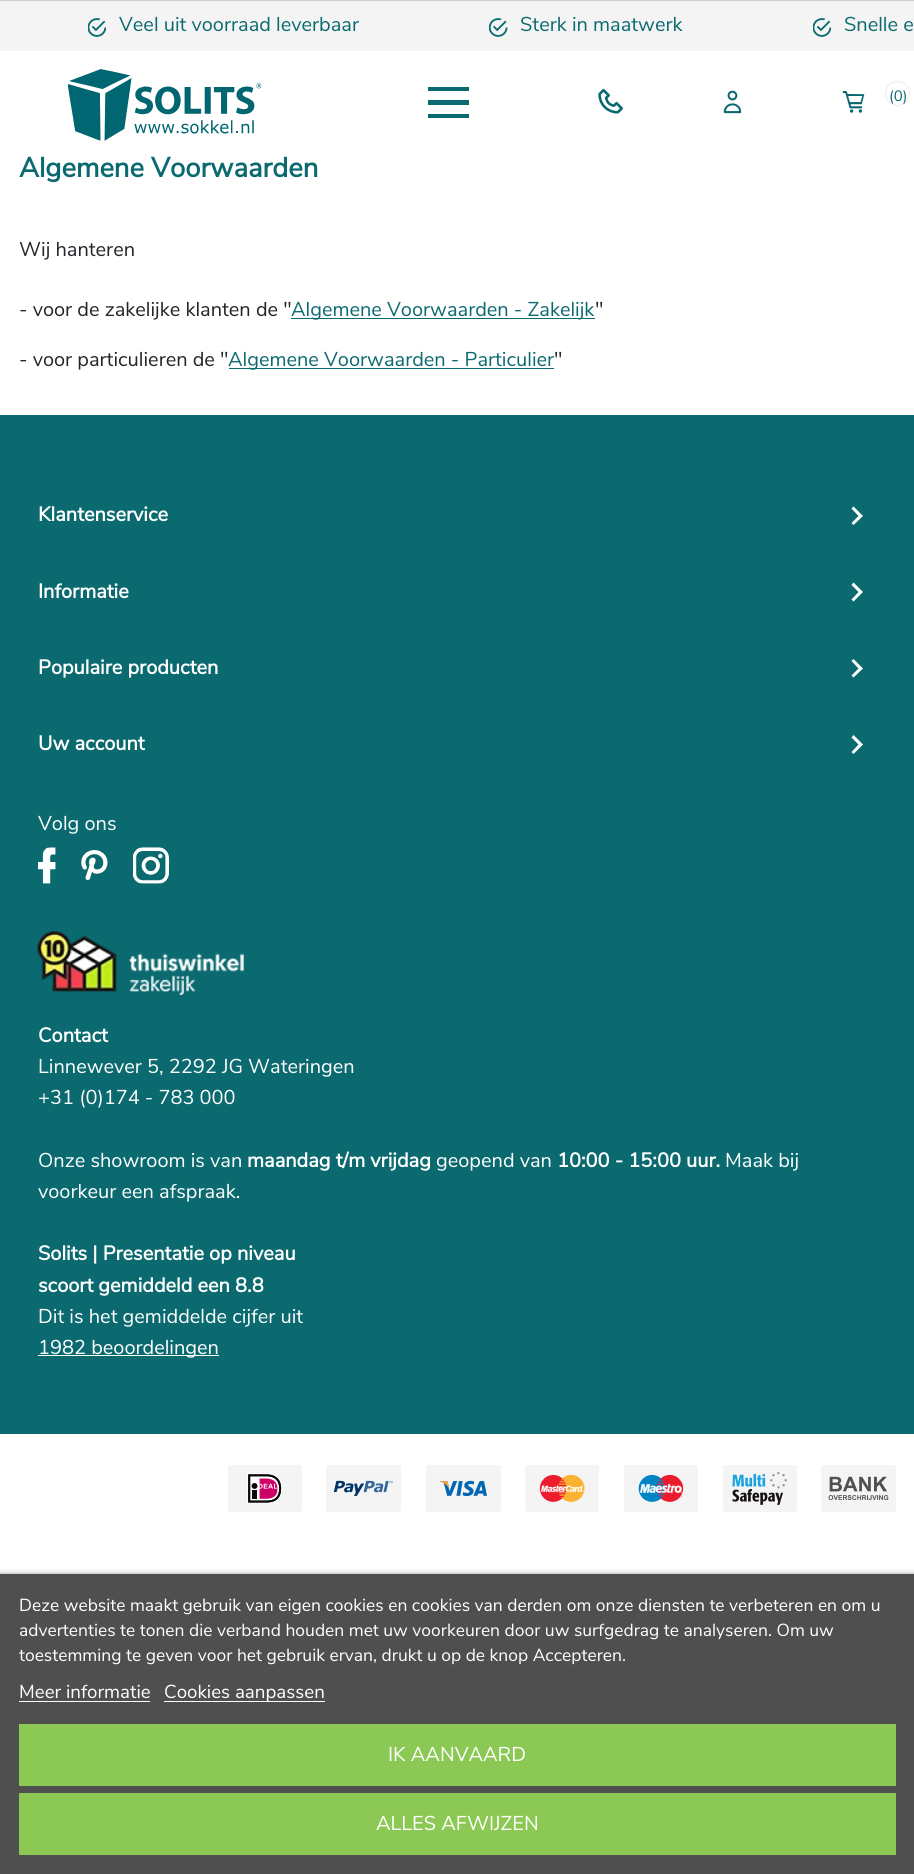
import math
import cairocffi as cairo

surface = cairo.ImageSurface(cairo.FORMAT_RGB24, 914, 1874)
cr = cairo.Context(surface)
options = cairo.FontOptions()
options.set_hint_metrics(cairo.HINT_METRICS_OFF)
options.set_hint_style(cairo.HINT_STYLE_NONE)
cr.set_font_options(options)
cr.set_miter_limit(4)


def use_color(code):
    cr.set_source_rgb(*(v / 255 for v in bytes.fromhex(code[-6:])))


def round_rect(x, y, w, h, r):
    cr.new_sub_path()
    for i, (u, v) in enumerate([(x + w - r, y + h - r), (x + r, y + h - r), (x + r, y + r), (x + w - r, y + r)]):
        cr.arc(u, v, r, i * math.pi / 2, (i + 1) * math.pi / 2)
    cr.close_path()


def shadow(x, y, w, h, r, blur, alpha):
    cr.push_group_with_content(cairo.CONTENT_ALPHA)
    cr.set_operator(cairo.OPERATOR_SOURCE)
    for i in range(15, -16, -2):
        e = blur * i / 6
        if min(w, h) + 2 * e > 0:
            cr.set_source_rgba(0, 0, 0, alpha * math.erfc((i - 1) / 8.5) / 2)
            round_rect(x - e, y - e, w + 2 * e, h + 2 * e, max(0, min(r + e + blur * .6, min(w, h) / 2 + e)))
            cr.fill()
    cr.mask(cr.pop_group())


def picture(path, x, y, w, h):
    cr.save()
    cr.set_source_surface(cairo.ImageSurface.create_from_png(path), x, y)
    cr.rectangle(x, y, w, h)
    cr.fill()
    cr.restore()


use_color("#ffffff")
cr.paint()
use_color("#cecece")
cr.rectangle(0, 0, 914, 1)
cr.fill()
use_color("#f5f4f4")
cr.rectangle(0, 1, 914, 50)
cr.fill()
picture("img1.png", 88, 18, 18, 19)
cr.select_font_face("Nunito Sans")
cr.set_font_size(20)
use_color("#0b6a70")
cr.move_to(119, 31)
cr.show_text("Veel uit voorraad leverbaar")
picture("img2.png", 489, 18, 19, 19)
cr.move_to(520, 31)
cr.show_text("Sterk in maatwerk")
picture("img1.png", 813, 18, 18, 19)
cr.move_to(844, 31)
cr.show_text("Snelle e")
picture("img3.png", 68, 69, 194, 72)
cr.rectangle(428, 87, 41, 4)
cr.fill()
cr.rectangle(428, 100, 41, 5)
cr.fill()
cr.rectangle(428, 114, 41, 4)
cr.fill()
picture("img4.png", 598, 88, 25, 26)
picture("img5.png", 723, 90, 19, 24)
picture("img6.png", 842, 91, 23, 22)
cr.arc(897.5, 93.5, 12, 0, 2 * math.pi)
use_color("#ebebeb")
cr.set_line_width(1)
cr.stroke()
cr.set_font_size(15)
use_color("#0b6a70")
cr.move_to(889, 101)
cr.show_text("(0)")
cr.select_font_face("Nunito Sans", cairo.FONT_SLANT_NORMAL, cairo.FONT_WEIGHT_BOLD)
cr.set_font_size(27.5)
cr.move_to(19, 177)
cr.show_text("Algemene Voorwaarden")
cr.select_font_face("Nunito Sans")
cr.set_font_size(20)
use_color("#212529")
cr.move_to(19, 256)
cr.show_text("Wij hanteren")
cr.move_to(19, 316)
cr.show_text("- voor de zakelijke klanten de \"")
use_color("#0b6a70")
cr.rectangle(291, 318, 304, 1)
cr.fill()
cr.move_to(291, 316)
cr.show_text("Algemene Voorwaarden - Zakelijk")
use_color("#212529")
cr.move_to(595, 316)
cr.show_text("\"")
cr.move_to(19, 366)
cr.show_text("- voor particulieren de \"")
use_color("#0b6a70")
cr.rectangle(229, 368, 325, 1)
cr.fill()
cr.move_to(228, 366)
cr.show_text("Algemene Voorwaarden - Particulier")
use_color("#212529")
cr.move_to(554, 366)
cr.show_text("\"")
use_color("#0b6a70")
cr.rectangle(0, 415, 914, 1019)
cr.fill()
cr.select_font_face("Nunito Sans", cairo.FONT_SLANT_NORMAL, cairo.FONT_WEIGHT_BOLD)
use_color("#ffffff")
cr.move_to(38, 521)
cr.show_text("Klantenservice")
cr.new_path()
cr.move_to(851.5, 523)
cr.line_to(858.5, 516)
cr.line_to(851.5, 508.5)
cr.line_to(853.5, 506.5)
cr.line_to(863, 516)
cr.line_to(853.5, 525)
cr.close_path()
cr.fill()
cr.move_to(38, 598)
cr.show_text("Informatie")
cr.new_path()
cr.move_to(851.5, 599.5)
cr.line_to(858.5, 592)
cr.line_to(851.5, 585)
cr.line_to(853.5, 582.5)
cr.line_to(863, 592)
cr.line_to(853.5, 601.5)
cr.close_path()
cr.fill()
cr.move_to(38, 674)
cr.show_text("Populaire producten")
cr.new_path()
cr.move_to(851.5, 675.5)
cr.line_to(858.5, 668.5)
cr.line_to(851.5, 661)
cr.line_to(853.5, 659)
cr.line_to(863, 668.5)
cr.line_to(853.5, 677.5)
cr.close_path()
cr.fill()
cr.move_to(38, 750)
cr.show_text("Uw account")
cr.new_path()
cr.move_to(851.5, 752)
cr.line_to(858.5, 744.5)
cr.line_to(851.5, 737.5)
cr.line_to(853.5, 735)
cr.line_to(863, 744.5)
cr.line_to(853.5, 754)
cr.close_path()
cr.fill()
cr.select_font_face("Nunito Sans")
cr.move_to(38, 830)
cr.show_text("Volg ons")
picture("img7.png", 38, 847, 18, 37)
picture("img8.png", 81, 850, 27, 30)
picture("img9.png", 133, 847, 36, 37)
picture("img10.png", 37, 931, 207, 64)
cr.select_font_face("Nunito Sans", cairo.FONT_SLANT_NORMAL, cairo.FONT_WEIGHT_BOLD)
cr.move_to(38, 1042)
cr.show_text("Contact")
cr.select_font_face("Nunito Sans")
cr.move_to(38, 1073)
cr.show_text("Linnewever 5, 2292 JG Wateringen")
cr.move_to(38, 1104)
cr.show_text("+31 (0)174 - 783 000")
cr.move_to(38, 1167)
cr.show_text("Onze showroom is van")
cr.select_font_face("Nunito Sans", cairo.FONT_SLANT_NORMAL, cairo.FONT_WEIGHT_BOLD)
cr.move_to(247, 1167)
cr.show_text("maandag t/m vrijdag")
cr.select_font_face("Nunito Sans")
cr.move_to(436, 1167)
cr.show_text("geopend van")
cr.select_font_face("Nunito Sans", cairo.FONT_SLANT_NORMAL, cairo.FONT_WEIGHT_BOLD)
cr.move_to(557, 1167)
cr.show_text("10:00 - 15:00 uur.")
cr.select_font_face("Nunito Sans")
cr.move_to(725, 1167)
cr.show_text("Maak bij")
cr.move_to(38, 1198)
cr.show_text("voorkeur een afspraak.")
cr.select_font_face("Nunito Sans", cairo.FONT_SLANT_NORMAL, cairo.FONT_WEIGHT_BOLD)
cr.move_to(38, 1260)
cr.show_text("Solits | Presentatie op niveau")
cr.move_to(38, 1292)
cr.show_text("scoort gemiddeld een 8.8")
cr.select_font_face("Nunito Sans")
cr.move_to(38, 1323)
cr.show_text("Dit is het gemiddelde cijfer uit")
cr.rectangle(38, 1355, 181, 1)
cr.fill()
cr.move_to(38, 1354)
cr.show_text("1982 beoordelingen")
use_color("#707070")
shadow(0, 1575, 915, 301, 0, 3, 1)
use_color("#4f4f4f")
cr.rectangle(0, 1574, 914, 300)
cr.fill()
cr.set_font_size(17.5)
use_color("#ffffff")
cr.move_to(19, 1611)
cr.show_text("Deze website maakt gebruik van eigen cookies en cookies van derden om onze diensten te verbeteren en om u")
cr.move_to(19, 1636)
cr.show_text("advertenties te tonen die verband houden met uw voorkeuren door uw surfgedrag te analyseren. Om uw")
cr.move_to(19, 1661)
cr.show_text("toestemming te geven voor het gebruik ervan, drukt u op de knop Accepteren.")
cr.set_font_size(18.75)
cr.move_to(19, 1698)
cr.show_text("Meer informatie")
cr.rectangle(19, 1701, 131, 1)
cr.fill()
cr.rectangle(164, 1701, 161, 1)
cr.fill()
cr.move_to(164, 1698)
cr.show_text("Cookies aanpassen")
use_color("#8bc954")
cr.rectangle(19, 1724, 877, 62)
cr.fill()
cr.set_font_size(20)
use_color("#ffffff")
cr.move_to(388, 1761)
cr.show_text("IK AANVAARD")
use_color("#8bc954")
cr.rectangle(19, 1793, 877, 62)
cr.fill()
use_color("#ffffff")
cr.move_to(376, 1830)
cr.show_text("ALLES AFWIJZEN")
picture("img11.png", 228, 1465, 74, 47)
picture("img12.png", 326, 1465, 75, 47)
picture("img13.png", 426, 1465, 75, 47)
picture("img14.png", 525, 1465, 74, 47)
picture("img15.png", 624, 1465, 74, 47)
picture("img16.png", 723, 1465, 74, 47)
picture("img17.png", 821, 1465, 75, 47)
surface.write_to_png("result.png")
